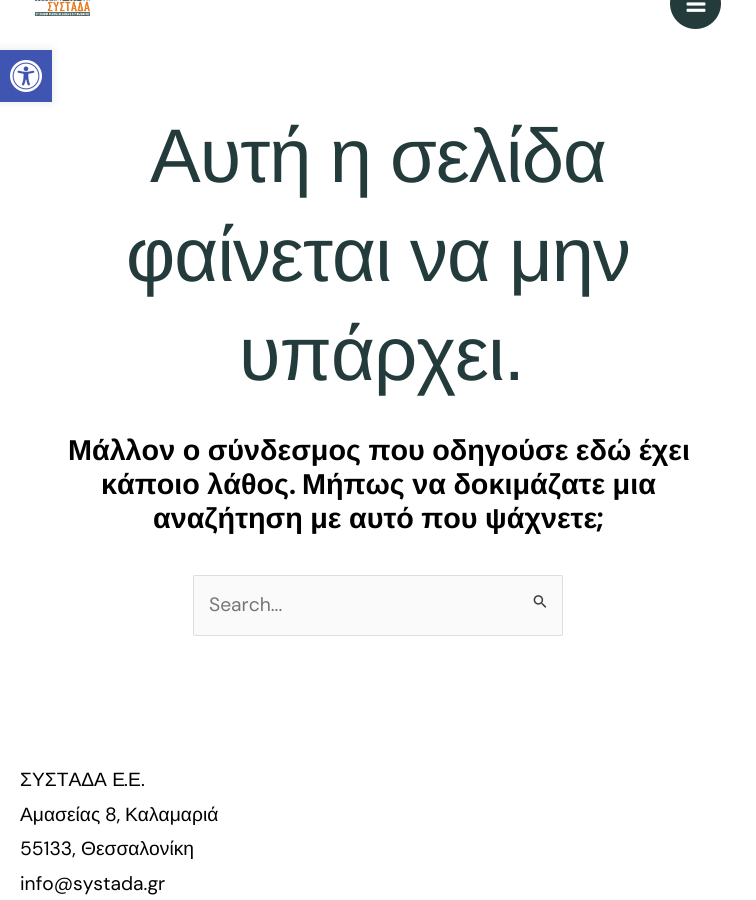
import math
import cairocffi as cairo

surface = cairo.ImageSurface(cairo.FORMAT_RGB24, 756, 900)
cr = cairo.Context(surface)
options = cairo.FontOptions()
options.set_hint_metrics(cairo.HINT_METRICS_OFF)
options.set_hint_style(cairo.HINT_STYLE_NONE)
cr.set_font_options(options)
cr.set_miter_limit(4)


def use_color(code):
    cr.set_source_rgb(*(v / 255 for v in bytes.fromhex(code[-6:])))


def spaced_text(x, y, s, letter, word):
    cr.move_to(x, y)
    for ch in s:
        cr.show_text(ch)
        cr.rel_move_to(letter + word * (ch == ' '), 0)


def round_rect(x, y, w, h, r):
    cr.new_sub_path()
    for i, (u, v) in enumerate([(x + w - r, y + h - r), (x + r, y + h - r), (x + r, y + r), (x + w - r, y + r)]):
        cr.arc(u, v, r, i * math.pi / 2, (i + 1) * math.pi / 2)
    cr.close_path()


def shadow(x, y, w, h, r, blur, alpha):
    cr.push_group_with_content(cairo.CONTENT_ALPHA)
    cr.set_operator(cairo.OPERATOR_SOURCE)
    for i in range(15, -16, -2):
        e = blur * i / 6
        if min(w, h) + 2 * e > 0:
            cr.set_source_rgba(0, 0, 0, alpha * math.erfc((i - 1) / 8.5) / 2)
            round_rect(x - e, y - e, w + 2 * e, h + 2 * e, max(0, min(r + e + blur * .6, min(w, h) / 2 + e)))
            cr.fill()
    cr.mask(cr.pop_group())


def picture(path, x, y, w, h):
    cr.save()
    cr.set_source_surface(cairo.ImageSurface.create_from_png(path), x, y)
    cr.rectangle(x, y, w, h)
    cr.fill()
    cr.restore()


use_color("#ffffff")
cr.paint()
use_color("#000000")
shadow(0, 50, 52, 52, 0, 5, 0.1)
use_color("#4054b2")
cr.rectangle(0, 50, 52, 52)
cr.fill()
picture("img1.png", 10, 60, 32, 32)
picture("img2.png", 35, 0, 55, 16)
use_color("#233b3b")
cr.arc(695.5, 3.5, 25.5, 0, 2 * math.pi)
cr.fill()
picture("img3.png", 686, 2, 20, 10)
cr.select_font_face("Liberation Sans")
cr.set_font_size(76)
spaced_text(150, 182, "Αυτή η σελίδα", -1, -1)
spaced_text(126, 281, "φαίνεται να μην", -1, -1)
spaced_text(239, 380, "υπάρχει.", -1, 0)
cr.select_font_face("Liberation Sans", cairo.FONT_SLANT_NORMAL, cairo.FONT_WEIGHT_BOLD)
cr.set_font_size(28.75)
use_color("#000000")
spaced_text(68, 460, "Μάλλον ο σύνδεσμος που οδηγούσε εδώ έχει", 0, -0.5)
spaced_text(101, 494, "κάποιο λάθος", 0, -0.5)
cr.select_font_face("DM Sans", cairo.FONT_SLANT_NORMAL, cairo.FONT_WEIGHT_BOLD)
cr.move_to(289, 494)
cr.show_text(".")
cr.select_font_face("Liberation Sans", cairo.FONT_SLANT_NORMAL, cairo.FONT_WEIGHT_BOLD)
spaced_text(302, 494, "Μήπως να δοκιμάζατε μια", 0, -0.5)
spaced_text(153, 528, "αναζήτηση με αυτό που ψάχνετε", 0, -0.5)
cr.select_font_face("DM Sans", cairo.FONT_SLANT_NORMAL, cairo.FONT_WEIGHT_BOLD)
cr.move_to(596, 528)
cr.show_text(";")
use_color("#fafafa")
round_rect(193.5, 575.5, 369, 60, 1.5)
cr.fill_preserve()
use_color("#dddddd")
cr.set_line_width(1)
cr.stroke()
cr.select_font_face("DM Sans")
cr.set_font_size(19.25)
use_color("#757575")
cr.move_to(209, 611)
cr.show_text("Search...")
picture("img4.png", 533, 595, 13, 13)
cr.select_font_face("Liberation Sans")
use_color("#000000")
cr.move_to(20, 786)
cr.show_text("ΣΥΣΤΑΔΑ Ε")
cr.select_font_face("DM Sans")
cr.move_to(124, 786)
cr.show_text(".")
cr.select_font_face("Liberation Sans")
cr.move_to(128, 786)
cr.show_text("Ε")
cr.select_font_face("DM Sans")
cr.move_to(141, 786)
cr.show_text(".")
cr.select_font_face("Liberation Sans")
cr.move_to(20, 821)
cr.show_text("Αμασείας")
cr.select_font_face("DM Sans")
cr.move_to(105, 821)
cr.show_text("8,")
cr.select_font_face("Liberation Sans")
cr.move_to(125, 821)
cr.show_text("Καλαμαριά")
cr.select_font_face("DM Sans")
cr.move_to(20, 855)
cr.show_text("55133,")
cr.select_font_face("Liberation Sans")
cr.move_to(81, 855)
cr.show_text("Θεσσαλονίκη")
cr.select_font_face("DM Sans")
cr.move_to(20, 890)
cr.show_text("info@systada.gr")
surface.write_to_png("result.png")
